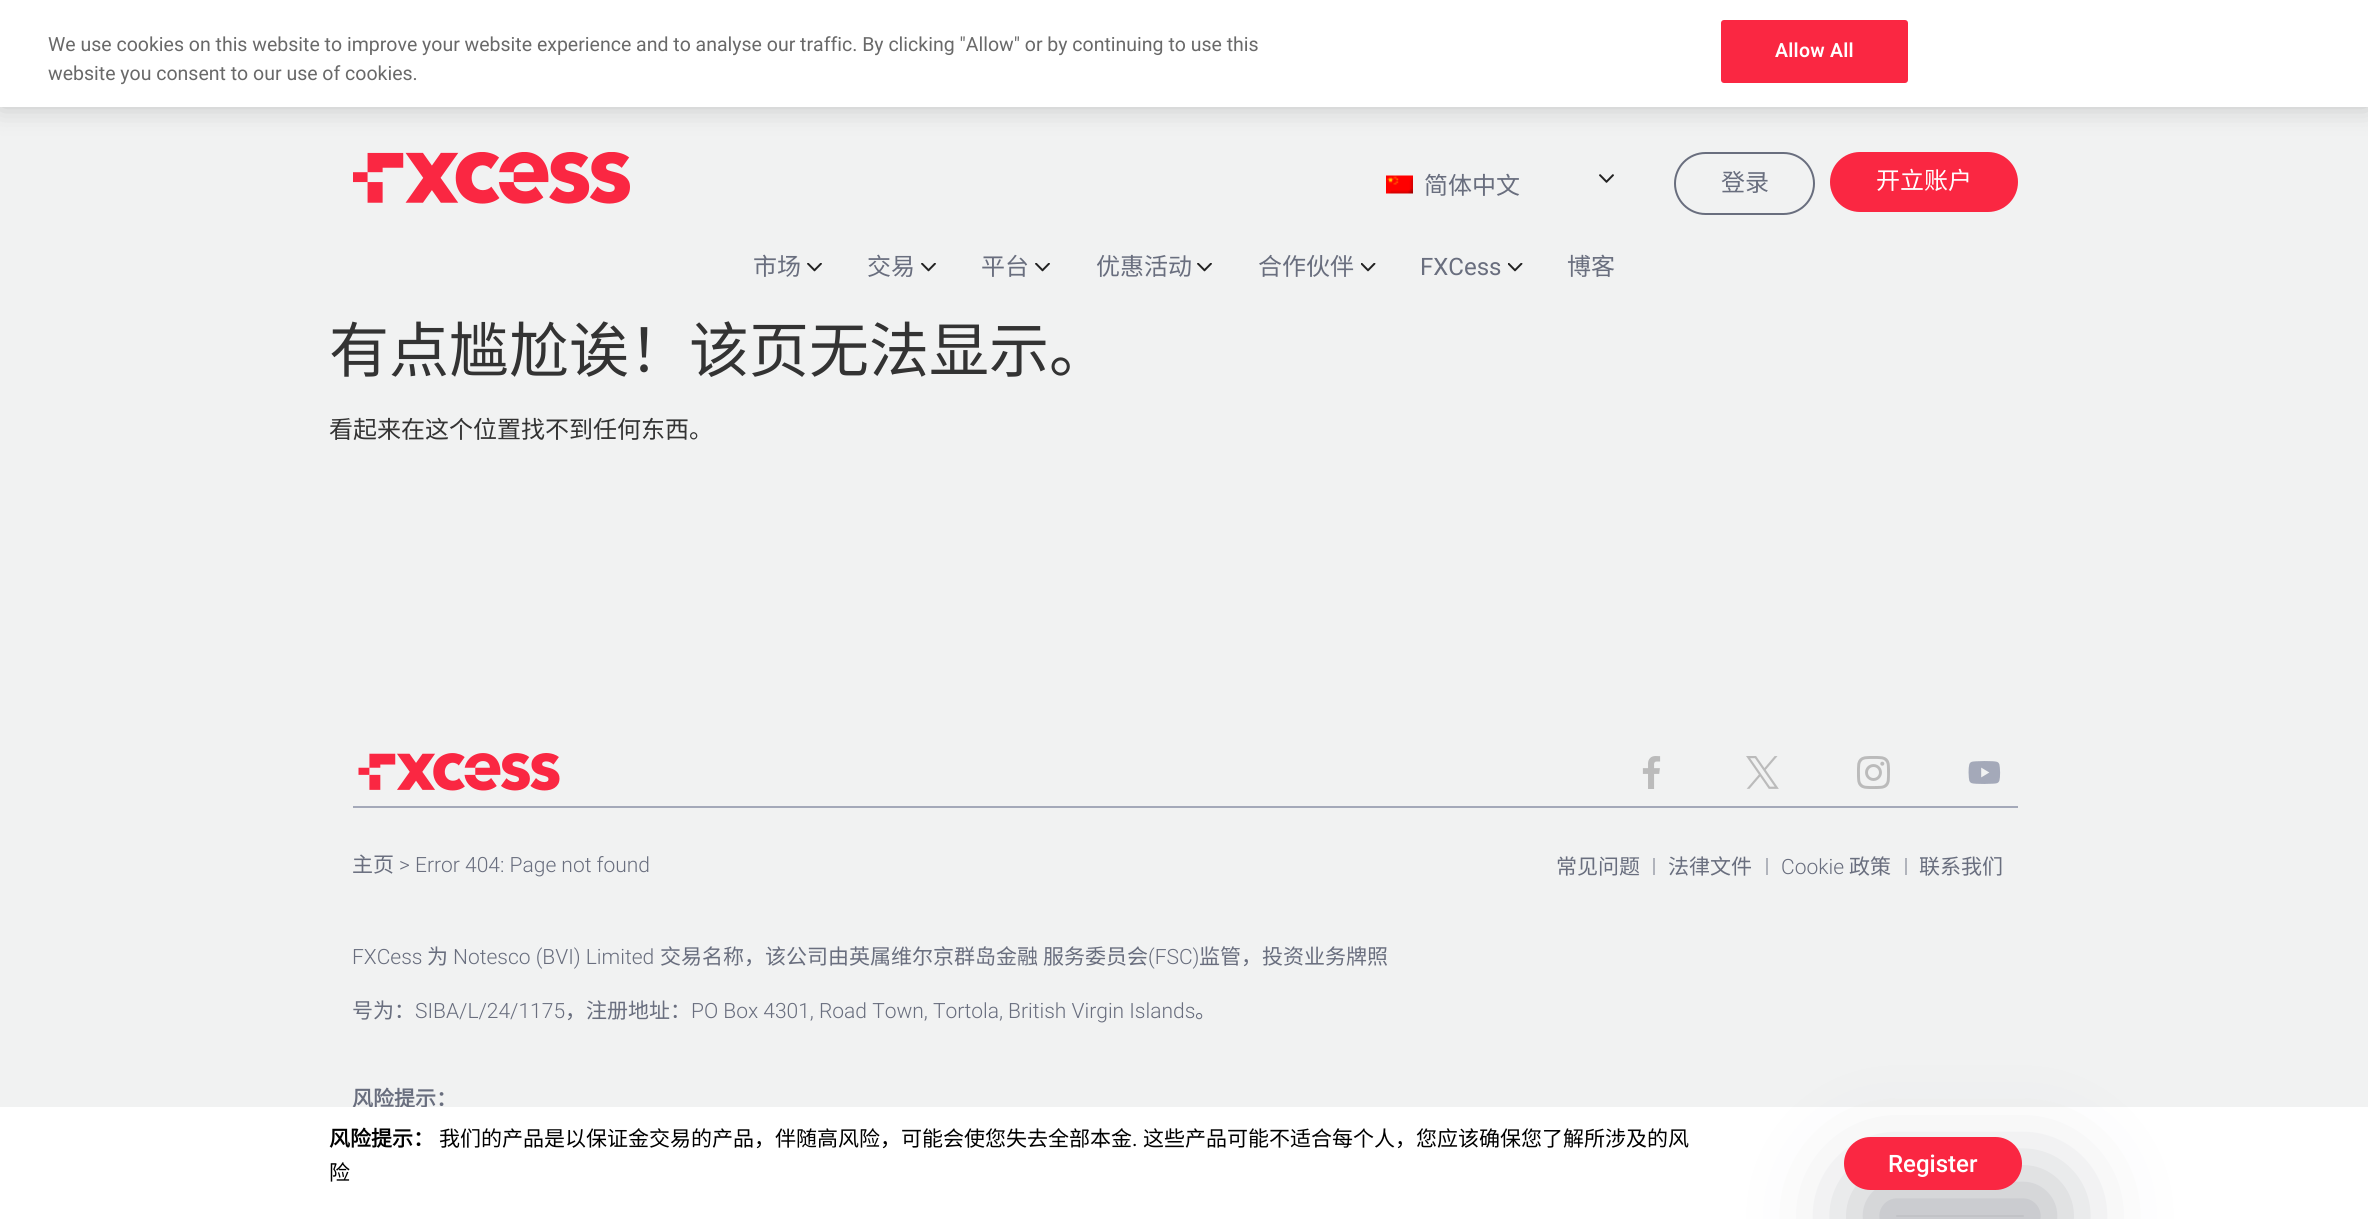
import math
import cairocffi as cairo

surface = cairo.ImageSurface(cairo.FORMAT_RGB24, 2368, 1219)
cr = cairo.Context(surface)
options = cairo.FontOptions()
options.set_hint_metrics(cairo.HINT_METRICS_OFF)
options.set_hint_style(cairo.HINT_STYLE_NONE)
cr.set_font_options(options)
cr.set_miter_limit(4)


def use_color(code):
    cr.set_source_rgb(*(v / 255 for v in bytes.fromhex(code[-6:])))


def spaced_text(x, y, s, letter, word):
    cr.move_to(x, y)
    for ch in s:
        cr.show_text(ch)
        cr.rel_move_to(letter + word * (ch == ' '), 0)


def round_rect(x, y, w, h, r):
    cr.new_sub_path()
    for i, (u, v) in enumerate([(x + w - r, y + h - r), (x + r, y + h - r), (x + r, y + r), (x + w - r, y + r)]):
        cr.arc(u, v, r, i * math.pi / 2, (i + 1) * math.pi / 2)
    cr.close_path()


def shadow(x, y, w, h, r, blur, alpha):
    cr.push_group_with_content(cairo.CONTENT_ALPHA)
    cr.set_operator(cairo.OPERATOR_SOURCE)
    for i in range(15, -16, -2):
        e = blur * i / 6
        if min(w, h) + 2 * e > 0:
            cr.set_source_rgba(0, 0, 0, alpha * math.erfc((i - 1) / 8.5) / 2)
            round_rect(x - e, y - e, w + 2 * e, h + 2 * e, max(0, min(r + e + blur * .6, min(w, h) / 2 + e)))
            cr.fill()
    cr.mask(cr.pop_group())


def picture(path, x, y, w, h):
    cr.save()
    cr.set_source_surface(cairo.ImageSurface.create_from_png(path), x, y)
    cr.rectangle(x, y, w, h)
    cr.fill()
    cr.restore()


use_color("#f1f2f2")
cr.paint()
use_color("#000000")
shadow(0, 0, 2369, 107, 0, 13.5, 0.2)
use_color("#ffffff")
cr.rectangle(0, 0, 2368, 107)
cr.fill()
cr.select_font_face("Roboto")
cr.set_font_size(19.5)
use_color("#696969")
cr.move_to(48, 51)
cr.show_text("We use cookies on this website to improve your website experience and to analyse our traffic. By clicking \"Allow\" or by continuing to use this")
cr.move_to(48, 80)
cr.show_text("website you consent to our use of cookies.")
use_color("#fa2742")
round_rect(1722, 21, 185, 61, 2)
cr.fill_preserve()
cr.stroke()
cr.select_font_face("Roboto SemiBold")
use_color("#ffffff")
spaced_text(1775, 57, "Allow All", 0.25, 0)
picture("img1.png", 353, 152, 277, 52)
picture("img2.png", 1386, 175, 27, 19)
cr.select_font_face("Noto Sans CJK SC")
cr.set_font_size(24)
use_color("#696e7e")
cr.move_to(1424, 194)
cr.show_text("简体中文")
picture("img3.png", 1599, 174, 15, 9)
round_rect(1675, 153, 139, 61, 30.5)
cr.stroke()
cr.move_to(1721, 191)
cr.show_text("登录")
use_color("#fa2742")
round_rect(1830, 152, 188, 60, 30)
cr.fill()
use_color("#ffffff")
cr.move_to(1876, 189)
cr.show_text("开立账户")
use_color("#696e7e")
cr.move_to(753, 275)
cr.show_text("市场")
picture("img4.png", 807, 263, 15, 9)
cr.move_to(867, 275)
cr.show_text("交易")
picture("img4.png", 921, 263, 15, 9)
cr.move_to(981, 275)
cr.show_text("平台")
picture("img4.png", 1035, 263, 15, 9)
cr.move_to(1096, 275)
cr.show_text("优惠活动")
picture("img4.png", 1197, 263, 15, 9)
cr.move_to(1258, 275)
cr.show_text("合作伙伴")
picture("img5.png", 1361, 263, 15, 9)
cr.select_font_face("Roboto")
cr.move_to(1420, 275)
cr.show_text("FXCess")
picture("img5.png", 1508, 263, 15, 9)
cr.select_font_face("Noto Sans CJK SC")
cr.move_to(1567, 275)
cr.show_text("博客")
cr.set_font_size(60)
use_color("#333333")
cr.move_to(329, 372)
cr.show_text("有点尴尬诶！该页无法显示。")
cr.set_font_size(24)
cr.move_to(329, 438)
cr.show_text("看起来在这个位置找不到任何东西。")
use_color("#a4a9b9")
cr.rectangle(353, 806, 1665, 2)
cr.fill()
picture("img6.png", 358, 753, 202, 38)
picture("img7.png", 1642, 756, 19, 33)
picture("img8.png", 1746, 756, 33, 33)
picture("img9.png", 1857, 756, 33, 33)
picture("img10.png", 1968, 761, 33, 23)
cr.set_font_size(21)
use_color("#696e7e")
cr.move_to(352, 872)
cr.show_text("主页")
cr.select_font_face("Roboto Light")
cr.move_to(399, 872)
cr.show_text("> Error 404: Page not found")
cr.select_font_face("Noto Sans CJK SC")
cr.move_to(1556, 874)
cr.show_text("常见问题")
use_color("#b1b4bc")
cr.rectangle(1653, 858, 2, 17)
cr.fill()
use_color("#696e7e")
cr.move_to(1668, 874)
cr.show_text("法律文件")
use_color("#b1b4bc")
cr.rectangle(1766, 858, 2, 17)
cr.fill()
cr.select_font_face("Roboto Light")
use_color("#696e7e")
cr.move_to(1781, 874)
cr.show_text("Cookie")
cr.select_font_face("Noto Sans CJK SC")
cr.move_to(1849, 874)
cr.show_text("政策")
use_color("#b1b4bc")
cr.rectangle(1905, 858, 2, 17)
cr.fill()
use_color("#696e7e")
cr.move_to(1919, 874)
cr.show_text("联系我们")
cr.select_font_face("Roboto Light")
cr.move_to(352, 964)
cr.show_text("FXCess")
cr.select_font_face("Noto Sans CJK SC")
cr.move_to(427, 964)
cr.show_text("为")
cr.select_font_face("Roboto Light")
cr.move_to(453, 964)
cr.show_text("Notesco (BVI) Limited")
cr.select_font_face("Noto Sans CJK SC")
cr.move_to(660, 964)
cr.show_text("交易名称，该公司由英属维尔京群岛金融")
cr.move_to(1043, 964)
cr.show_text("服务委员会")
cr.select_font_face("Roboto Light")
cr.move_to(1148, 964)
cr.show_text("(FSC)")
cr.select_font_face("Noto Sans CJK SC")
cr.move_to(1199, 964)
cr.show_text("监管，投资业务牌照")
cr.move_to(352, 1018)
cr.show_text("号为：")
cr.select_font_face("Roboto Light")
cr.move_to(415, 1018)
cr.show_text("SIBA/L/24/1175")
cr.select_font_face("Noto Sans CJK SC")
cr.move_to(565, 1018)
cr.show_text("，注册地址：")
cr.select_font_face("Roboto Light")
cr.move_to(691, 1018)
cr.show_text("PO Box 4301, Road Town, Tortola, British Virgin Islands")
cr.select_font_face("Noto Sans CJK SC")
cr.move_to(1195, 1018)
cr.show_text("。")
cr.select_font_face("Noto Sans CJK SC", cairo.FONT_SLANT_NORMAL, cairo.FONT_WEIGHT_BOLD)
cr.move_to(352, 1106)
cr.show_text("风险提示：")
use_color("#ffffff")
cr.rectangle(0, 1107, 2368, 112)
cr.fill()
use_color("#000000")
cr.move_to(329, 1146)
cr.show_text("风险提示：")
cr.select_font_face("Noto Sans CJK SC")
cr.move_to(439, 1146)
cr.show_text("我们的产品是以保证金交易的产品，伴随高风险，可能会使您失去全部本金")
cr.select_font_face("Roboto")
cr.move_to(1132, 1146)
cr.show_text(".")
cr.select_font_face("Noto Sans CJK SC")
cr.move_to(1143, 1146)
cr.show_text("这些产品可能不适合每个人，您应该确保您了解所涉及的风")
cr.move_to(329, 1180)
cr.show_text("险")
use_color("#adafb4")
shadow(1871, 1190, 178, 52, 26, 50, 1)
use_color("#fa2742")
round_rect(1844, 1137, 178, 53, 26.5)
cr.fill()
cr.select_font_face("Roboto Medium")
cr.set_font_size(24)
use_color("#ffffff")
cr.move_to(1888, 1172)
cr.show_text("Register")
surface.write_to_png("result.png")
